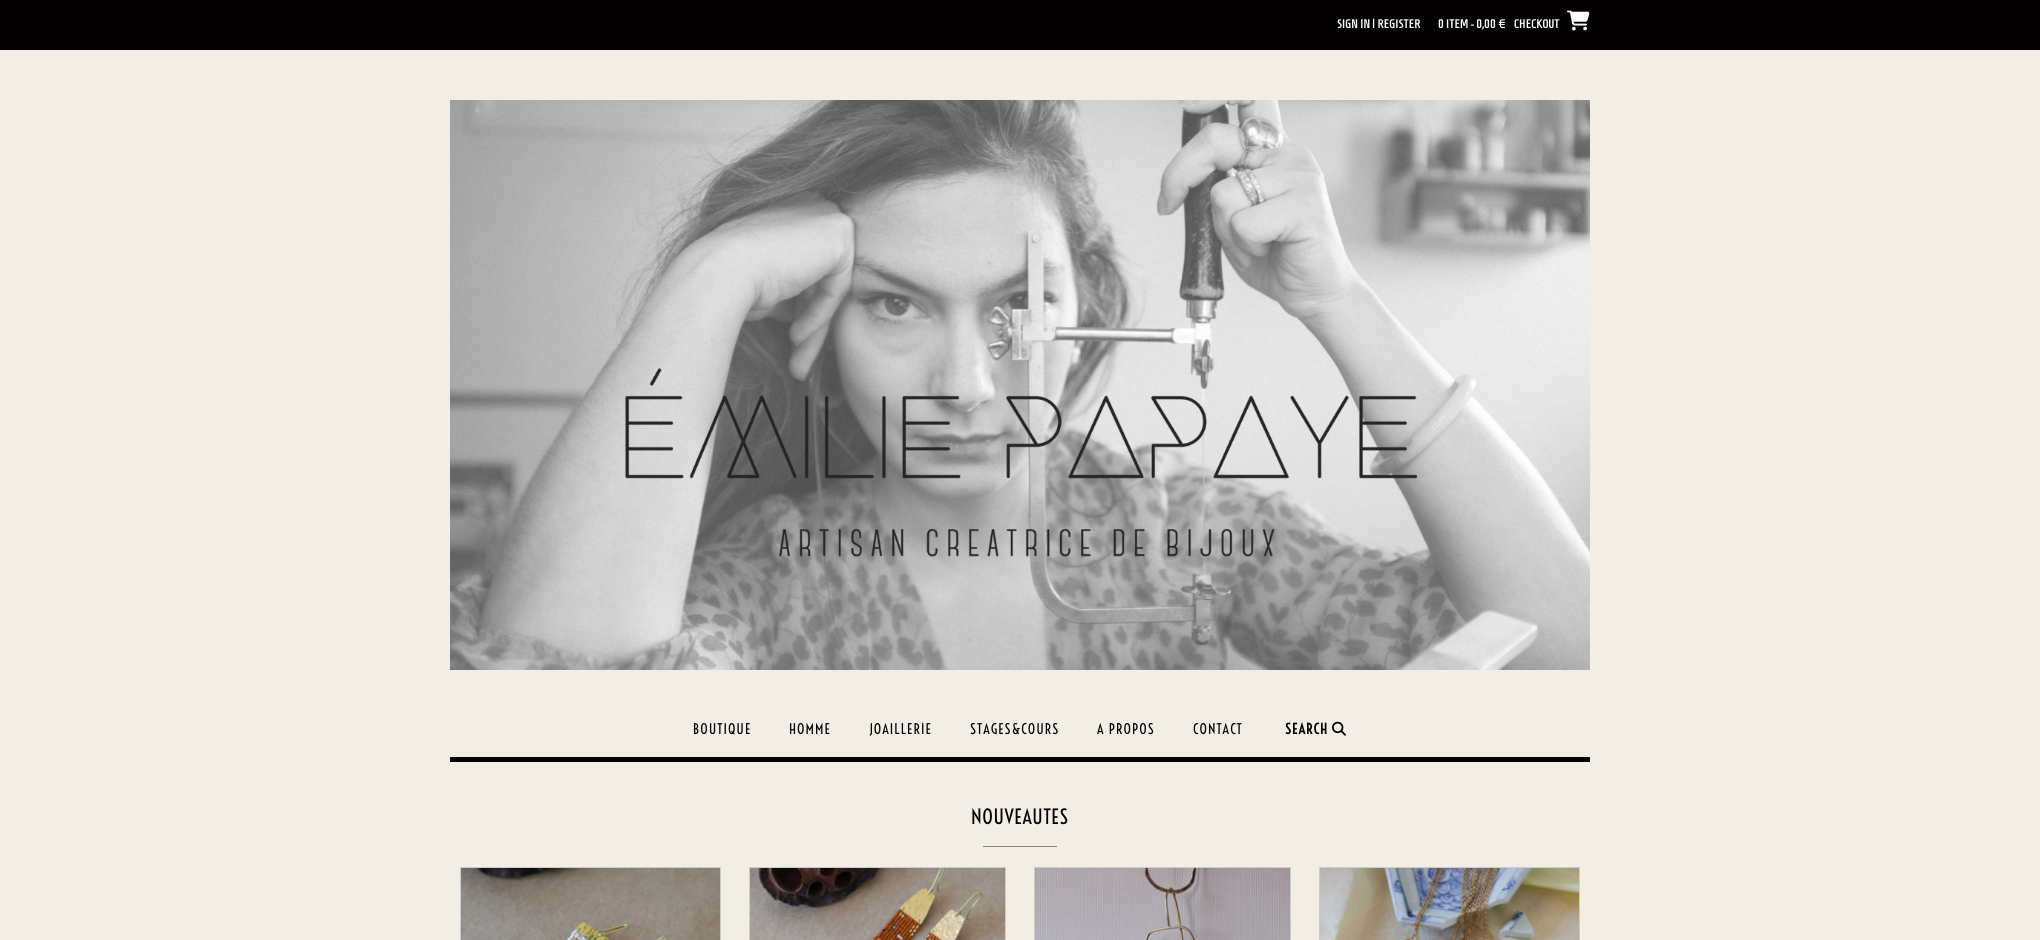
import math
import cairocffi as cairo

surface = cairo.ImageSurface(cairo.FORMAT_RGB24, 2040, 940)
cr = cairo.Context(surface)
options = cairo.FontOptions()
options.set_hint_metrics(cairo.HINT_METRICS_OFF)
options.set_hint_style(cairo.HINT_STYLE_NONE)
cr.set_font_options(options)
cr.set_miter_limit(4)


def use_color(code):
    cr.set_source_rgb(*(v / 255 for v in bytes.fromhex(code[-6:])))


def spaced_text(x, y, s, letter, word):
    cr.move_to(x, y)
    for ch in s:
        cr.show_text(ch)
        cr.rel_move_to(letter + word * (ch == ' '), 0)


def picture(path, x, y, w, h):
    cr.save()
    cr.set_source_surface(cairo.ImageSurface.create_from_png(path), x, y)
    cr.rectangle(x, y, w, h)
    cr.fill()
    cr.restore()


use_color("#f2eee3")
cr.paint()
use_color("#020000")
cr.rectangle(0, 0, 2040, 50)
cr.fill()
cr.select_font_face("Homenaje", cairo.FONT_SLANT_NORMAL, cairo.FONT_WEIGHT_BOLD)
cr.set_font_size(12)
use_color("#ffffff")
spaced_text(1337, 28, "SIGN IN | REGISTER", 0.4, 0)
spaced_text(1438, 28, "0 ITEM - 0,00 €", 0.4, 0)
spaced_text(1514, 28, "CHECKOUT", 0.4, 0)
picture("img1.png", 1567, 10, 23, 21)
picture("img2.png", 450, 100, 1140, 570)
use_color("#020000")
cr.rectangle(450, 757, 1140, 5)
cr.fill()
cr.select_font_face("Voltaire")
cr.set_font_size(14)
use_color("#000000")
spaced_text(693, 734, "BOUTIQUE", 1, 0)
spaced_text(789, 734, "HOMME", 1, 0)
spaced_text(869, 734, "JOAILLERIE", 1, 0)
spaced_text(970, 734, "STAGES&COURS", 1, 0)
spaced_text(1097, 734, "A PROPOS", 1, 0)
spaced_text(1193, 734, "CONTACT", 1, 0)
cr.select_font_face("Voltaire", cairo.FONT_SLANT_NORMAL, cairo.FONT_WEIGHT_BOLD)
spaced_text(1285, 734, "SEARCH", 1, 0)
picture("img3.png", 1332, 721, 14, 15)
use_color("#828387")
cr.rectangle(983, 846, 74, 1)
cr.fill()
cr.select_font_face("Voltaire")
cr.set_font_size(20)
use_color("#000000")
spaced_text(971, 824, "NOUVEAUTES", 0.4, 0)
cr.rectangle(460.5, 867.5, 260, 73)
use_color("#cccccc")
cr.set_line_width(1)
cr.stroke()
picture("img4.png", 461, 868, 259, 72)
cr.rectangle(749.5, 867.5, 256, 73)
cr.stroke()
picture("img5.png", 750, 868, 255, 72)
cr.rectangle(1034.5, 867.5, 256, 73)
cr.stroke()
picture("img6.png", 1035, 868, 255, 72)
cr.rectangle(1319.5, 867.5, 260, 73)
cr.stroke()
picture("img7.png", 1320, 868, 259, 72)
surface.write_to_png("result.png")
